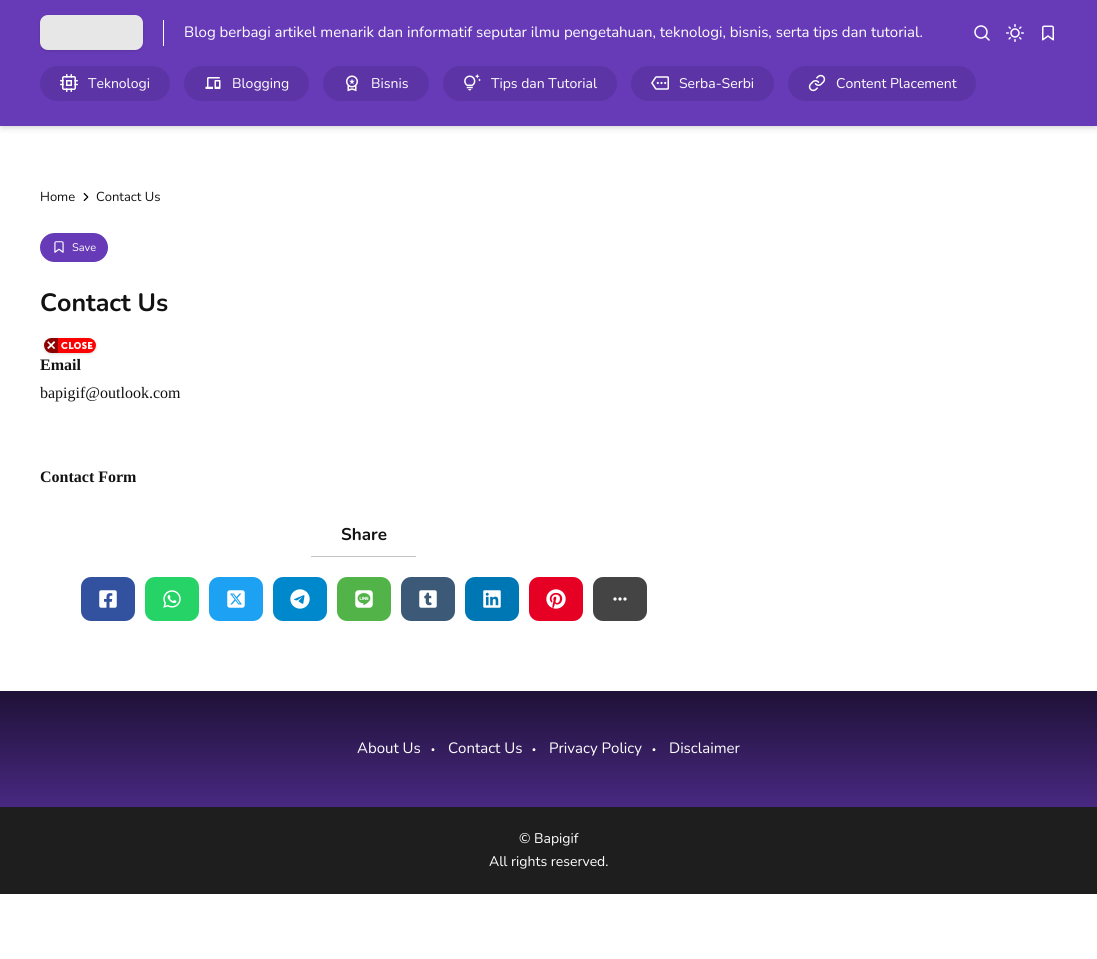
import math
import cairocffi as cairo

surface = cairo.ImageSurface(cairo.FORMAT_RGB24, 1097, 959)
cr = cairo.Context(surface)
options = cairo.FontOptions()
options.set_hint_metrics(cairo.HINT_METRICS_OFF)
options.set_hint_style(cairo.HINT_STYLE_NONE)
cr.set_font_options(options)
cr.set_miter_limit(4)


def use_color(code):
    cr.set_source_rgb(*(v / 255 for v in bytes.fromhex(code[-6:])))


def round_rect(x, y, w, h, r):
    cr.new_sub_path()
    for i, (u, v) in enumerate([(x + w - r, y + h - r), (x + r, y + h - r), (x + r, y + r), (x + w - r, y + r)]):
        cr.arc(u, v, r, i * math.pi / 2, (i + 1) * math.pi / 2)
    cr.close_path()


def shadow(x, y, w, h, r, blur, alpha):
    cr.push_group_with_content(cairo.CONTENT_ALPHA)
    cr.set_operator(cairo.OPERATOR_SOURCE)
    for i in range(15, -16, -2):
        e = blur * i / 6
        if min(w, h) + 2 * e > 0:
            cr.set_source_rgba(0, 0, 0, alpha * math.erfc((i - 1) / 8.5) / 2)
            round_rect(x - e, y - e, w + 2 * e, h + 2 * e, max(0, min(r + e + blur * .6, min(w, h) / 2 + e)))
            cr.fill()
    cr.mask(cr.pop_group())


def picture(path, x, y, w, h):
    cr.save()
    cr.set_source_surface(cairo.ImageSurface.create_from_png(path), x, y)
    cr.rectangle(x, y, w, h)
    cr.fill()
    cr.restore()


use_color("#ffffff")
cr.paint()
use_color("#673ab7")
cr.rectangle(0, 0, 1097, 66)
cr.fill()
use_color("#000000")
shadow(41, 17, 101, 33, 7, 1, 0.1)
shadow(40, 16, 103, 35, 8, 1.5, 0.1)
use_color("#e7e7e7")
round_rect(40, 15, 103, 35, 8)
cr.fill()
use_color("#ffffff")
cr.rectangle(163, 20, 1, 26)
cr.fill()
cr.select_font_face("Nunito")
cr.set_font_size(15)
cr.move_to(184, 37)
cr.show_text("Blog berbagi artikel menarik dan informatif seputar ilmu pengetahuan, teknologi, bisnis, serta tips dan tutorial.")
cr.new_path()
cr.arc(981, 32, 6, 0, 2 * math.pi)
cr.set_line_width(1.5)
cr.stroke()
cr.new_path()
cr.move_to(989, 40)
cr.line_to(985.5, 36.5)
cr.set_line_cap(cairo.LINE_CAP_ROUND)
cr.set_line_join(cairo.LINE_JOIN_ROUND)
cr.stroke()
picture("img1.png", 1006, 24, 18, 18)
picture("img2.png", 1042, 25, 12, 16)
use_color("#000000")
shadow(2, 70, 1093, 56, 0, 2, 0.1)
shadow(1, 71, 1095, 58, 0, 3, 0.1)
use_color("#673ab7")
cr.rectangle(0, 66, 1097, 60)
cr.fill()
use_color("#5d34a5")
round_rect(40, 66, 130, 35, 17.5)
cr.fill()
picture("img3.png", 60, 74, 18, 18)
cr.set_font_size(14)
use_color("#ffffff")
cr.move_to(88, 88)
cr.show_text("Teknologi")
use_color("#5d34a5")
round_rect(184, 66, 125, 35, 17.5)
cr.fill()
picture("img4.png", 205, 77, 16, 12)
use_color("#ffffff")
cr.move_to(232, 88)
cr.show_text("Blogging")
use_color("#5d34a5")
round_rect(323, 66, 106, 35, 17.5)
cr.fill()
picture("img5.png", 346, 75, 12, 17)
use_color("#ffffff")
cr.move_to(371, 88)
cr.show_text("Bisnis")
use_color("#5d34a5")
round_rect(443, 66, 174, 35, 17.5)
cr.fill()
picture("img6.png", 464, 74, 17, 17)
use_color("#ffffff")
cr.move_to(491, 88)
cr.show_text("Tips dan Tutorial")
use_color("#5d34a5")
round_rect(631, 66, 143, 35, 17.5)
cr.fill()
picture("img7.png", 651, 76, 18, 14)
use_color("#ffffff")
cr.move_to(679, 88)
cr.show_text("Serba-Serbi")
use_color("#5d34a5")
round_rect(788, 66, 188, 35, 17.5)
cr.fill()
picture("img8.png", 808, 74, 18, 18)
use_color("#ffffff")
cr.move_to(836, 88)
cr.show_text("Content Placement")
cr.set_font_size(13)
use_color("#121212")
cr.move_to(40, 201)
cr.show_text("Home")
picture("img9.png", 83, 193, 6, 8)
cr.move_to(96, 201)
cr.show_text("Contact Us")
use_color("#673ab7")
round_rect(40, 233, 68, 29, 14.5)
cr.fill()
picture("img10.png", 54, 241, 10, 12)
cr.set_font_size(11)
use_color("#ffffff")
cr.move_to(72, 251)
cr.show_text("Save")
cr.select_font_face("Nunito", cairo.FONT_SLANT_NORMAL, cairo.FONT_WEIGHT_BOLD)
cr.set_font_size(25)
use_color("#121212")
cr.move_to(40, 311)
cr.show_text("Contact Us")
cr.select_font_face("Liberation Serif", cairo.FONT_SLANT_NORMAL, cairo.FONT_WEIGHT_BOLD)
cr.set_font_size(16)
cr.move_to(40, 370)
cr.show_text("Email")
cr.select_font_face("Liberation Serif")
cr.move_to(40, 398)
cr.show_text("bapigif@outlook.com")
cr.select_font_face("Liberation Serif", cairo.FONT_SLANT_NORMAL, cairo.FONT_WEIGHT_BOLD)
cr.move_to(40, 482)
cr.show_text("Contact Form")
use_color("#c4c4c4")
cr.rectangle(311, 556, 105, 1)
cr.fill()
cr.select_font_face("Nunito", cairo.FONT_SLANT_NORMAL, cairo.FONT_WEIGHT_BOLD)
cr.set_font_size(17)
use_color("#121212")
cr.move_to(341, 540)
cr.show_text("Share")
use_color("#32529f")
round_rect(81, 577, 54, 44, 10)
cr.fill()
picture("img11.png", 99, 590, 18, 18)
use_color("#25d366")
round_rect(145, 577, 54, 44, 10)
cr.fill()
picture("img12.png", 163, 590, 18, 18)
use_color("#1da1f2")
round_rect(209, 577, 54, 44, 10)
cr.fill()
picture("img13.png", 227, 590, 18, 18)
use_color("#0088cc")
round_rect(273, 577, 54, 44, 10)
cr.fill()
picture("img14.png", 290, 589, 20, 20)
use_color("#52b448")
round_rect(337, 577, 54, 44, 10)
cr.fill()
picture("img15.png", 355, 590, 18, 18)
use_color("#3c5a77")
round_rect(401, 577, 54, 44, 10)
cr.fill()
picture("img16.png", 419, 590, 18, 18)
use_color("#0077b5")
round_rect(465, 577, 54, 44, 10)
cr.fill()
picture("img17.png", 483, 590, 18, 18)
use_color("#e60023")
round_rect(529, 577, 54, 44, 10)
cr.fill()
picture("img18.png", 546, 589, 20, 20)
use_color("#444444")
round_rect(593, 577, 54, 44, 10)
cr.fill()
picture("img19.png", 613, 597, 14, 4)
gradient = cairo.LinearGradient(549, 894, 549, 691)
gradient.add_color_stop_rgba(0, 0.404, 0.227, 0.722, 1)
gradient.add_color_stop_rgba(1, 0.122, 0.067, 0.216, 1)
cr.set_source(gradient)
cr.rectangle(0, 691, 1097, 116)
cr.fill()
cr.select_font_face("Nunito")
cr.set_font_size(15)
use_color("#ffffff")
cr.move_to(357, 753)
cr.show_text("About Us")
cr.set_font_size(26)
cr.move_to(430, 751)
cr.show_text(".")
cr.set_font_size(15)
cr.move_to(448, 753)
cr.show_text("Contact Us")
cr.set_font_size(26)
cr.move_to(531, 751)
cr.show_text(".")
cr.set_font_size(15)
cr.move_to(549, 753)
cr.show_text("Privacy Policy")
cr.set_font_size(26)
cr.move_to(651, 751)
cr.show_text(".")
cr.set_font_size(15)
cr.move_to(669, 753)
cr.show_text("Disclaimer")
use_color("#1e1e1e")
cr.rectangle(0, 807, 1097, 87)
cr.fill()
cr.set_font_size(14)
use_color("#ffffff")
cr.move_to(519, 843)
cr.show_text("© Bapigif")
cr.move_to(489, 866)
cr.show_text("All rights reserved.")
use_color("#000000")
shadow(45, 340, 50, 13, 6.5, 1, 0.1)
shadow(44, 339, 52, 15, 7.5, 1.5, 0.1)
use_color("#f3f3f3")
round_rect(44, 338, 52, 15, 7.5)
cr.fill()
picture("img20.png", 44, 338, 52, 15)
surface.write_to_png("result.png")
